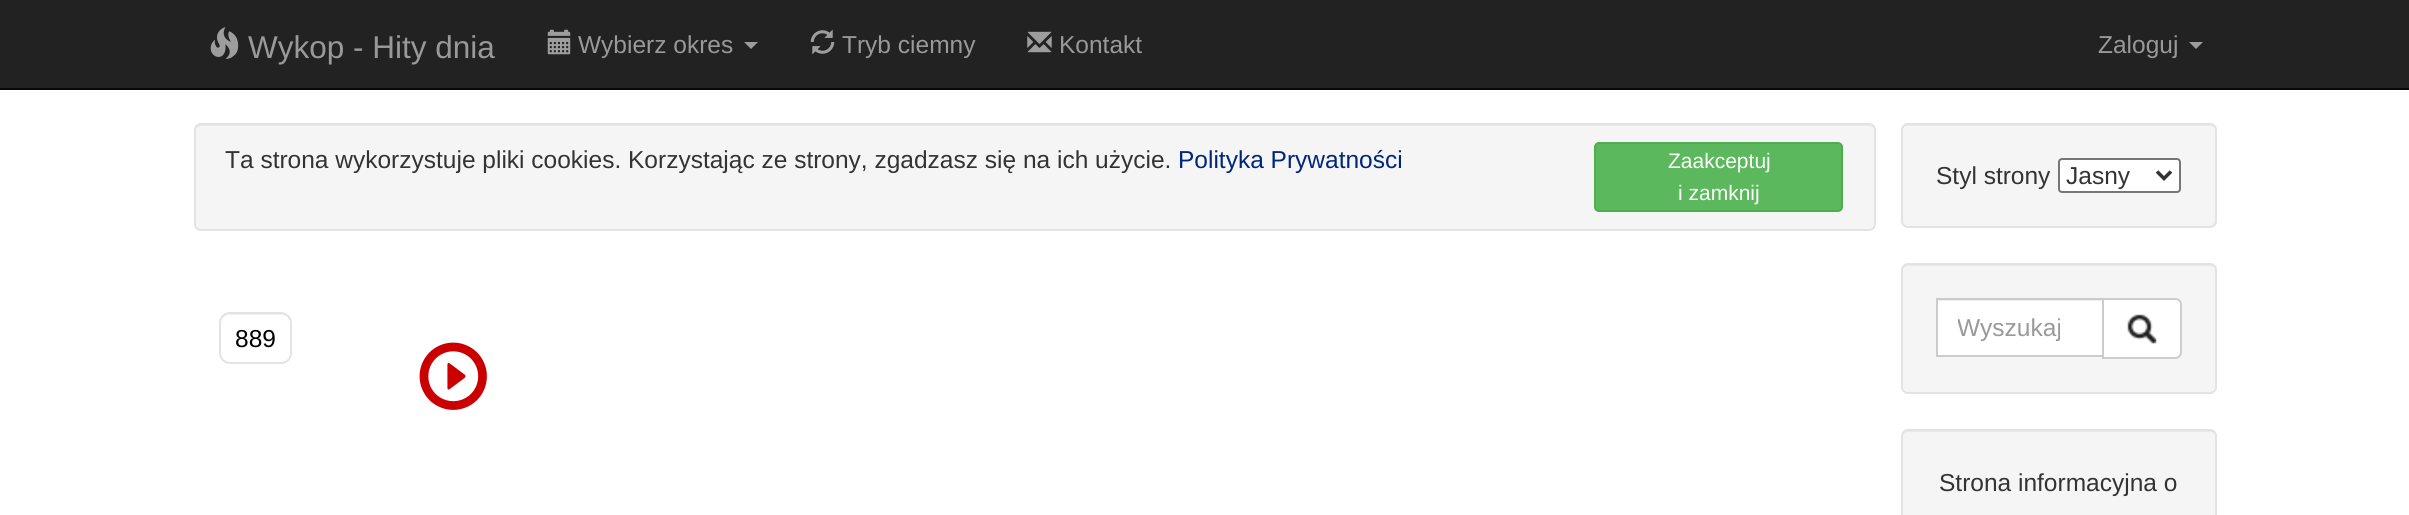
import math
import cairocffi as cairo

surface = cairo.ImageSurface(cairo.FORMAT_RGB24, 2409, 515)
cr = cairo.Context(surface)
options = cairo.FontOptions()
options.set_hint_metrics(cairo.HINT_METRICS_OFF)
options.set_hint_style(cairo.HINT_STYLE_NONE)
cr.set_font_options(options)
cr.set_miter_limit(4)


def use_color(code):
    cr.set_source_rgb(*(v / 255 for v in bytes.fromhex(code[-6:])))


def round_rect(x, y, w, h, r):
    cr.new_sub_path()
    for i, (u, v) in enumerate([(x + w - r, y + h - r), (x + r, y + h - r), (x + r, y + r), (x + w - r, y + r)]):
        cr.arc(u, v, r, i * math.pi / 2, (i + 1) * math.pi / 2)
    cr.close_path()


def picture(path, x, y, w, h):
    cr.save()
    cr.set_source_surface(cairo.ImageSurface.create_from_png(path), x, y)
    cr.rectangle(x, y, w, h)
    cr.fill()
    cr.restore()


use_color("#ffffff")
cr.paint()
use_color("#222222")
cr.rectangle(0, 0, 2409, 88)
cr.fill()
use_color("#080808")
cr.rectangle(0, 88, 2409, 2)
cr.fill()
picture("img1.png", 210, 27, 29, 32)
cr.select_font_face("Liberation Sans")
cr.set_font_size(31.5)
use_color("#999999")
cr.move_to(248, 58)
cr.show_text("Wykop - Hity dnia")
picture("img2.png", 547, 29, 24, 26)
cr.set_font_size(24.5)
cr.move_to(578, 53)
cr.show_text("Wybierz okres")
use_color("#9d9d9d")
cr.new_path()
cr.move_to(744, 42)
cr.line_to(758, 42)
cr.line_to(751, 49)
cr.close_path()
cr.fill()
picture("img3.png", 810, 29, 25, 26)
use_color("#999999")
cr.move_to(842, 53)
cr.show_text("Tryb ciemny")
picture("img4.png", 1027, 31, 25, 22)
cr.move_to(1059, 53)
cr.show_text("Kontakt")
cr.move_to(2098, 53)
cr.show_text("Zaloguj")
use_color("#9d9d9d")
cr.new_path()
cr.move_to(2189, 42)
cr.line_to(2203, 42)
cr.line_to(2196, 49)
cr.close_path()
cr.fill()
use_color("#f5f5f5")
round_rect(194, 123, 1682, 108, 7)
cr.fill()
use_color("#e9e9e9")
cr.new_path()
cr.move_to(201, 126)
cr.line_to(1869, 126)
cr.curve_to(1872, 126, 1874, 128, 1874, 131)
cr.curve_to(1874, 128, 1873, 124, 1869, 124)
cr.line_to(201, 124)
cr.curve_to(197, 124, 196, 128, 196, 131)
cr.curve_to(196, 128, 198, 126, 201, 126)
cr.close_path()
cr.fill()
round_rect(195, 124, 1680, 106, 6)
use_color("#e3e3e3")
cr.stroke()
use_color("#333333")
cr.move_to(225, 168)
cr.show_text("Ta strona wykorzystuje pliki cookies. Korzystając ze strony, zgadzasz się na ich użycie.")
use_color("#00257c")
cr.move_to(1178, 168)
cr.show_text("Polityka Prywatności")
use_color("#5cb85c")
round_rect(1595, 143, 247, 68, 4)
cr.fill_preserve()
use_color("#4cae4c")
cr.stroke()
cr.set_font_size(21)
use_color("#ffffff")
cr.move_to(1668, 168)
cr.show_text("Zaakceptuj")
cr.move_to(1678, 200)
cr.show_text("i zamknij")
use_color("#f2f2f2")
cr.new_path()
cr.move_to(229, 315)
cr.line_to(273, 315)
cr.curve_to(280, 315, 289, 314, 290, 322)
cr.line_to(290, 358)
cr.curve_to(291, 356, 291, 355, 291, 353)
cr.line_to(291, 322)
cr.curve_to(291, 317, 287, 313, 282, 313)
cr.line_to(230, 313)
cr.curve_to(226, 313, 223, 315, 222, 319)
cr.curve_to(223, 317, 226, 315, 229, 315)
cr.close_path()
cr.fill()
round_rect(220, 313, 71, 50, 10)
use_color("#e3e3e3")
cr.stroke()
cr.set_font_size(24.5)
use_color("#000000")
cr.move_to(235, 347)
cr.show_text("889")
picture("img5.png", 419, 342, 68, 68)
use_color("#f5f5f5")
round_rect(1901, 123, 316, 105, 7)
cr.fill()
use_color("#e9e9e9")
cr.new_path()
cr.move_to(1908, 126)
cr.line_to(2210, 126)
cr.curve_to(2213, 126, 2216, 128, 2216, 131)
cr.line_to(2216, 129)
cr.curve_to(2216, 126, 2214, 124, 2211, 124)
cr.line_to(1907, 124)
cr.curve_to(1904, 124, 1902, 126, 1902, 129)
cr.line_to(1902, 131)
cr.curve_to(1902, 128, 1905, 126, 1908, 126)
cr.close_path()
cr.fill()
round_rect(1902, 124, 314, 103, 6)
use_color("#e3e3e3")
cr.stroke()
use_color("#333333")
cr.move_to(1936, 184)
cr.show_text("Styl strony")
use_color("#ffffff")
round_rect(2059, 159, 121, 33, 3)
cr.fill_preserve()
use_color("#767676")
cr.stroke()
cr.new_path()
cr.move_to(2157, 171.5)
cr.line_to(2164, 178.5)
cr.line_to(2171, 171.5)
use_color("#333333")
cr.set_line_width(3.5)
cr.stroke()
cr.move_to(2066, 184)
cr.show_text("Jasny")
use_color("#f5f5f5")
round_rect(1901, 263, 316, 131, 7)
cr.fill()
use_color("#e9e9e9")
cr.new_path()
cr.move_to(1908, 266)
cr.line_to(2210, 266)
cr.curve_to(2213, 266, 2216, 268, 2216, 271)
cr.line_to(2216, 269)
cr.curve_to(2216, 266, 2214, 264, 2211, 264)
cr.line_to(1907, 264)
cr.curve_to(1904, 264, 1902, 266, 1902, 269)
cr.line_to(1902, 271)
cr.curve_to(1902, 268, 1905, 266, 1908, 266)
cr.close_path()
cr.fill()
round_rect(1902, 264, 314, 129, 6)
use_color("#e3e3e3")
cr.set_line_width(2)
cr.stroke()
use_color("#ffffff")
cr.rectangle(1938, 300, 164, 55)
cr.fill()
cr.set_source_rgba(0, 0, 0, 0.07)
cr.rectangle(1937, 300, 165, 1)
cr.fill()
cr.rectangle(1937, 299, 166, 57)
use_color("#cccccc")
cr.stroke()
cr.save()
cr.rectangle(1958, 313, 123, 28)
cr.clip()
use_color("#999999")
cr.move_to(1957, 336)
cr.show_text("Wyszukaj")
cr.restore()
use_color("#ffffff")
cr.new_path()
cr.move_to(2103, 299)
cr.line_to(2175, 299)
cr.curve_to(2178.5, 299, 2181, 301.5, 2181, 305)
cr.line_to(2181, 352)
cr.curve_to(2181, 355.5, 2178.5, 358, 2175, 358)
cr.line_to(2103, 358)
cr.close_path()
cr.fill_preserve()
use_color("#cccccc")
cr.stroke()
picture("img6.png", 2127, 314, 30, 30)
use_color("#f5f5f5")
round_rect(1901, 429, 316, 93, 7)
cr.fill()
use_color("#e9e9e9")
cr.new_path()
cr.move_to(1908, 432)
cr.line_to(2210, 432)
cr.curve_to(2213, 432, 2216, 435, 2216, 438)
cr.line_to(2216, 436)
cr.curve_to(2216, 433, 2214, 431, 2211, 431)
cr.line_to(1907, 431)
cr.curve_to(1904, 431, 1902, 433, 1902, 436)
cr.line_to(1902, 438)
cr.curve_to(1902, 435, 1905, 432, 1908, 432)
cr.close_path()
cr.fill()
round_rect(1902, 430, 314, 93, 6)
use_color("#e3e3e3")
cr.stroke()
use_color("#333333")
cr.move_to(1939, 491)
cr.show_text("Strona informacyjna o")
surface.write_to_png("result.png")
